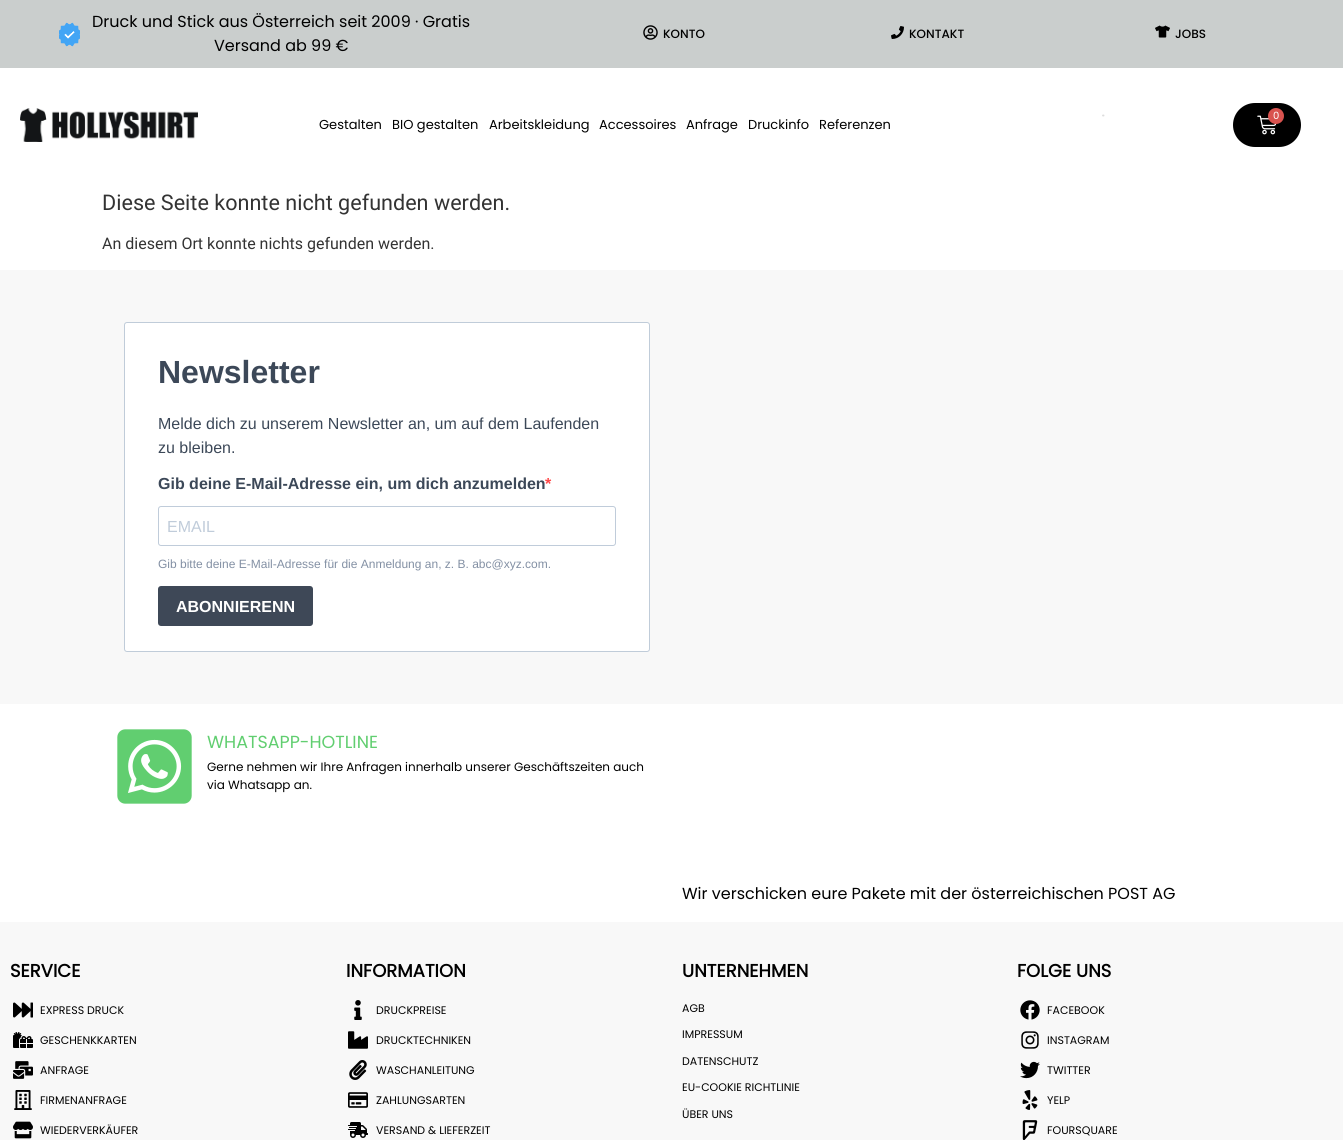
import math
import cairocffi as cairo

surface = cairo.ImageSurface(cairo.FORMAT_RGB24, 1343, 1140)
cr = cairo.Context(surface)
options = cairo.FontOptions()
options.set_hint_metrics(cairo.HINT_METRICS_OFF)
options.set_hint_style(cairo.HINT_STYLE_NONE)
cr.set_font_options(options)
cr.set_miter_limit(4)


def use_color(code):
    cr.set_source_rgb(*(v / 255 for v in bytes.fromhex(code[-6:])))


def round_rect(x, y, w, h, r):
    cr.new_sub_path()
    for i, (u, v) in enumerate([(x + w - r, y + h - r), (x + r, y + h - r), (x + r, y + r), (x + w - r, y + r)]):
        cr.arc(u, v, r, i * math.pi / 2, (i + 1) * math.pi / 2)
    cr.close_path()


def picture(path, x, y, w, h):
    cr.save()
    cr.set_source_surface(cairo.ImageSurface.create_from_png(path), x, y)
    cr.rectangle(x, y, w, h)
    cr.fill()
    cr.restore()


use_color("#ffffff")
cr.paint()
use_color("#cacecd")
cr.rectangle(0, 0, 1343, 68)
cr.fill()
picture("img1.png", 59, 22, 21, 25)
cr.select_font_face("Poppins")
cr.set_font_size(16)
use_color("#000000")
cr.move_to(92, 27)
cr.show_text("Druck und Stick aus Österreich seit 2009 · Gratis")
cr.move_to(214, 51)
cr.show_text("Versand ab 99 €")
picture("img2.png", 643, 25, 15, 15)
cr.select_font_face("Poppins Medium")
cr.set_font_size(12)
cr.move_to(663, 38)
cr.show_text("KONTO")
picture("img3.png", 891, 26, 13, 13)
cr.move_to(909, 38)
cr.show_text("KONTAKT")
picture("img4.png", 1155, 25, 15, 13)
cr.move_to(1175, 38)
cr.show_text("JOBS")
picture("img5.png", 20, 108, 178, 34)
cr.new_path()
cr.move_to(1103, 115.5)
cr.line_to(1103.5, 115.5)
use_color("#dddddd")
cr.set_line_width(1.9)
cr.set_line_cap(cairo.LINE_CAP_ROUND)
cr.stroke()
use_color("#000000")
round_rect(1232, 102, 70, 46, 23)
cr.fill_preserve()
use_color("#ffffff")
cr.set_line_width(2)
cr.set_line_cap(cairo.LINE_CAP_BUTT)
cr.stroke()
picture("img6.png", 1257, 115, 20, 20)
use_color("#d9534f")
cr.arc(1276, 116, 8, 0, 2 * math.pi)
cr.fill()
cr.select_font_face("Poppins")
cr.set_font_size(10)
use_color("#ffffff")
cr.move_to(1273, 119)
cr.show_text("0")
cr.set_font_size(13)
use_color("#000000")
cr.move_to(319, 129)
cr.show_text("Gestalten")
cr.move_to(392, 129)
cr.show_text("BIO gestalten")
cr.move_to(489, 129)
cr.show_text("Arbeitskleidung")
cr.move_to(599, 129)
cr.show_text("Accessoires")
cr.move_to(686, 129)
cr.show_text("Anfrage")
cr.move_to(748, 129)
cr.show_text("Druckinfo")
cr.move_to(819, 129)
cr.show_text("Referenzen")
cr.select_font_face("Roboto")
cr.set_font_size(21.6)
use_color("#333333")
cr.move_to(102, 210)
cr.show_text("Diese Seite konnte nicht gefunden werden.")
cr.set_font_size(16)
cr.move_to(102, 249)
cr.show_text("An diesem Ort konnte nichts gefunden werden.")
use_color("#f8f8f8")
cr.rectangle(0, 270, 1343, 434)
cr.fill()
use_color("#ffffff")
round_rect(124.5, 322.5, 525, 329, 2.5)
cr.fill_preserve()
use_color("#c0ccd9")
cr.set_line_width(1)
cr.stroke()
cr.select_font_face("Liberation Sans", cairo.FONT_SLANT_NORMAL, cairo.FONT_WEIGHT_BOLD)
cr.set_font_size(32)
use_color("#3c4858")
cr.move_to(158, 383)
cr.show_text("Newsletter")
cr.select_font_face("Liberation Sans")
cr.set_font_size(16)
cr.move_to(158, 429)
cr.show_text("Melde dich zu unserem Newsletter an, um auf dem Laufenden")
cr.move_to(158, 453)
cr.show_text("zu bleiben.")
cr.select_font_face("Liberation Sans", cairo.FONT_SLANT_NORMAL, cairo.FONT_WEIGHT_BOLD)
cr.move_to(158, 489)
cr.show_text("Gib deine E-Mail-Adresse ein, um dich anzumelden")
use_color("#ff4949")
cr.move_to(545, 489)
cr.show_text("*")
round_rect(158.5, 506.5, 457, 39, 2.5)
use_color("#c0ccda")
cr.stroke()
cr.select_font_face("Liberation Sans")
cr.move_to(167, 532)
cr.show_text("EMAIL")
cr.set_font_size(12)
use_color("#8390a4")
cr.move_to(158, 568)
cr.show_text("Gib bitte deine E-Mail-Adresse für die Anmeldung an, z. B. abc@xyz.com.")
use_color("#3e4857")
round_rect(158, 586, 155, 40, 3)
cr.fill()
cr.select_font_face("Liberation Sans", cairo.FONT_SLANT_NORMAL, cairo.FONT_WEIGHT_BOLD)
cr.set_font_size(16)
use_color("#ffffff")
cr.move_to(176, 612)
cr.show_text("ABONNIERENN")
picture("img7.png", 117, 729, 75, 75)
cr.select_font_face("Poppins")
cr.set_font_size(17.5)
use_color("#61ce70")
cr.move_to(207, 748)
cr.show_text("WHATSAPP-HOTLINE")
cr.set_font_size(12)
use_color("#000000")
cr.move_to(207, 771)
cr.show_text("Gerne nehmen wir Ihre Anfragen innerhalb unserer Geschäftszeiten auch")
cr.move_to(207, 789)
cr.show_text("via Whatsapp an.")
cr.set_font_size(16)
cr.move_to(682, 899)
cr.show_text("Wir verschicken eure Pakete mit der österreichischen POST AG")
use_color("#f8f8f8")
cr.rectangle(0, 922, 1343, 218)
cr.fill()
cr.select_font_face("Poppins", cairo.FONT_SLANT_NORMAL, cairo.FONT_WEIGHT_BOLD)
cr.set_font_size(18)
use_color("#000000")
cr.move_to(10, 977)
cr.show_text("SERVICE")
picture("img8.png", 13, 1002, 20, 16)
cr.select_font_face("Poppins")
cr.set_font_size(11)
cr.move_to(40, 1014)
cr.show_text("EXPRESS DRUCK")
picture("img9.png", 13, 1032, 20, 16)
cr.move_to(40, 1044)
cr.show_text("GESCHENKKARTEN")
picture("img10.png", 13, 1061, 20, 18)
cr.move_to(40, 1074)
cr.show_text("ANFRAGE")
picture("img11.png", 14, 1090, 18, 20)
cr.move_to(40, 1104)
cr.show_text("FIRMENANFRAGE")
picture("img12.png", 13, 1121, 20, 18)
cr.move_to(40, 1134)
cr.show_text("WIEDERVERKÄUFER")
cr.select_font_face("Poppins", cairo.FONT_SLANT_NORMAL, cairo.FONT_WEIGHT_BOLD)
cr.set_font_size(18)
cr.move_to(346, 977)
cr.show_text("INFORMATION")
picture("img13.png", 354, 1000, 8, 20)
cr.select_font_face("Poppins")
cr.set_font_size(11)
cr.move_to(376, 1014)
cr.show_text("DRUCKPREISE")
picture("img14.png", 348, 1031, 20, 18)
cr.move_to(376, 1044)
cr.show_text("DRUCKTECHNIKEN")
picture("img15.png", 349, 1060, 18, 20)
cr.move_to(376, 1074)
cr.show_text("WASCHANLEITUNG")
picture("img16.png", 348, 1092, 20, 16)
cr.move_to(376, 1104)
cr.show_text("ZAHLUNGSARTEN")
picture("img17.png", 348, 1122, 20, 16)
cr.move_to(376, 1134)
cr.show_text("VERSAND & LIEFERZEIT")
cr.select_font_face("Poppins", cairo.FONT_SLANT_NORMAL, cairo.FONT_WEIGHT_BOLD)
cr.set_font_size(18)
cr.move_to(682, 977)
cr.show_text("UNTERNEHMEN")
cr.select_font_face("Poppins")
cr.set_font_size(11)
cr.move_to(682, 1012)
cr.show_text("AGB")
cr.move_to(682, 1038)
cr.show_text("IMPRESSUM")
cr.move_to(682, 1065)
cr.show_text("DATENSCHUTZ")
cr.move_to(682, 1091)
cr.show_text("EU-COOKIE RICHTLINIE")
cr.move_to(682, 1118)
cr.show_text("ÜBER UNS")
cr.select_font_face("Poppins", cairo.FONT_SLANT_NORMAL, cairo.FONT_WEIGHT_BOLD)
cr.set_font_size(18)
cr.move_to(1017, 977)
cr.show_text("FOLGE UNS")
picture("img18.png", 1020, 1000, 20, 20)
cr.select_font_face("Poppins")
cr.set_font_size(11)
cr.move_to(1047, 1014)
cr.show_text("FACEBOOK")
picture("img19.png", 1021, 1031, 18, 18)
cr.move_to(1047, 1044)
cr.show_text("INSTAGRAM")
picture("img20.png", 1020, 1061, 20, 18)
cr.move_to(1047, 1074)
cr.show_text("TWITTER")
picture("img21.png", 1022, 1090, 16, 20)
cr.move_to(1047, 1104)
cr.show_text("YELP")
picture("img22.png", 1022, 1120, 16, 20)
cr.move_to(1047, 1134)
cr.show_text("FOURSQUARE")
surface.write_to_png("result.png")
